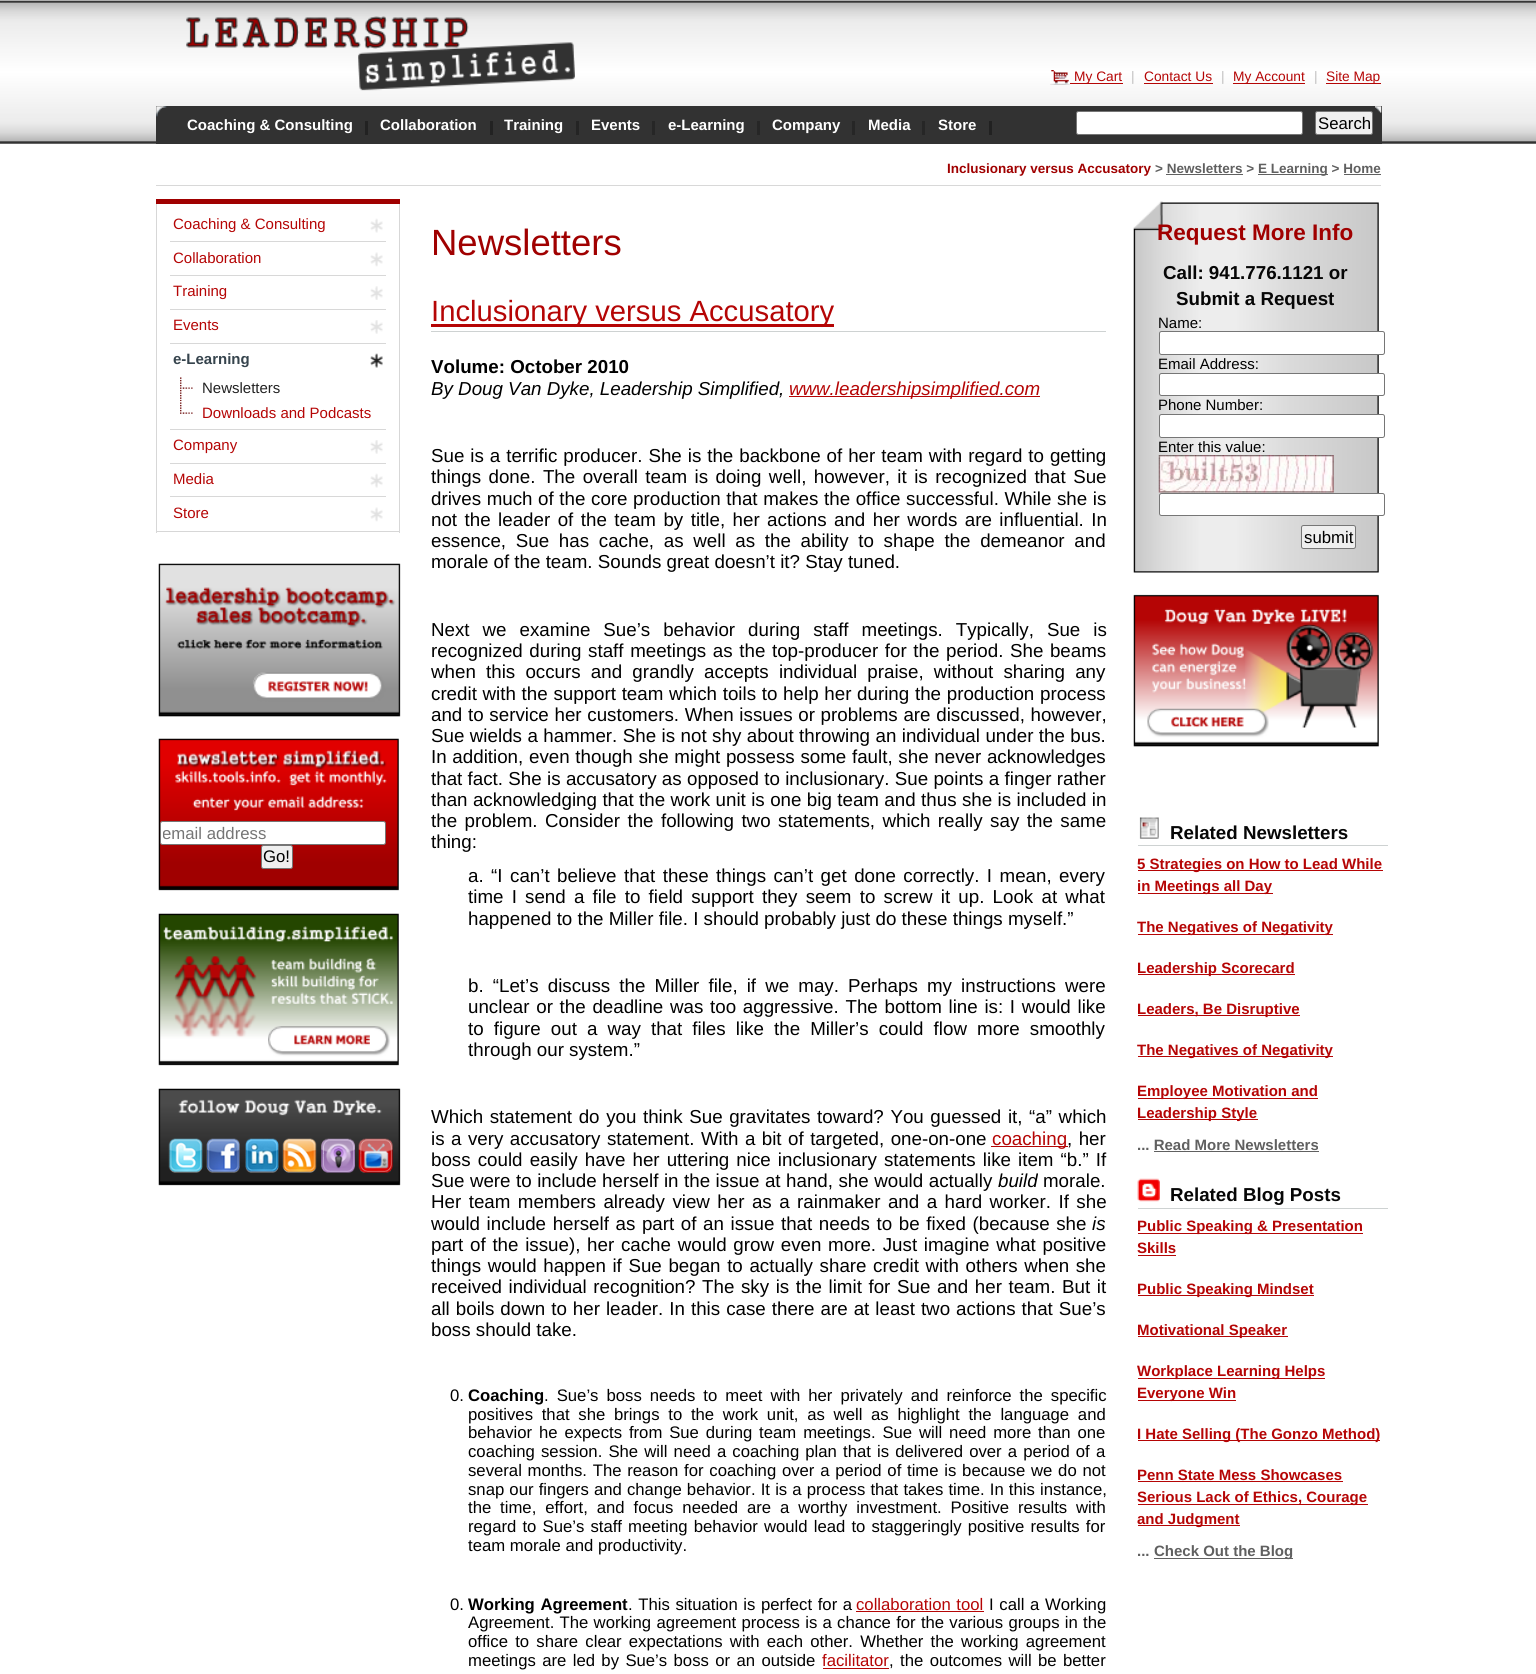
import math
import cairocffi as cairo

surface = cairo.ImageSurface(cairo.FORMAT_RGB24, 1536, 1674)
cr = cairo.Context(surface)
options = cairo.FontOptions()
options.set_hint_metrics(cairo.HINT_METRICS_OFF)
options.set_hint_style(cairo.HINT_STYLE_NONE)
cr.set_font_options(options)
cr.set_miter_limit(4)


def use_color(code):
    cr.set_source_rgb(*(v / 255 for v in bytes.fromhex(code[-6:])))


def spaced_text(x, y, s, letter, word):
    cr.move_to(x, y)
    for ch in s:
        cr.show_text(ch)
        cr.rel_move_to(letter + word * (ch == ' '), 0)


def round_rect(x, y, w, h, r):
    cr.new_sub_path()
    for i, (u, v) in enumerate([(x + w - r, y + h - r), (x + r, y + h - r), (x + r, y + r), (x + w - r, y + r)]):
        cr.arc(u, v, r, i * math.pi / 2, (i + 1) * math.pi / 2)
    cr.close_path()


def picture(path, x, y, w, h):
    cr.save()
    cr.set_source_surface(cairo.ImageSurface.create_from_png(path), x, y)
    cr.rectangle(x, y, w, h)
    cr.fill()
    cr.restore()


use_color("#ffffff")
cr.paint()
picture("img1.png", 0, 0, 1536, 144)
picture("img2.png", 186, 16, 389, 75)
picture("img3.png", 1050, 70, 20, 15)
use_color("#b50505")
cr.rectangle(1070, 83, 53, 1)
cr.fill()
cr.select_font_face("Liberation Sans")
cr.set_font_size(13.75)
cr.move_to(1074, 81)
cr.show_text("My Cart")
use_color("#c0bfbf")
cr.move_to(1131, 81)
cr.show_text("|")
use_color("#b50505")
cr.move_to(1144, 81)
cr.show_text("Contact Us")
cr.rectangle(1144, 83, 69, 1)
cr.fill()
use_color("#c0bfbf")
cr.move_to(1221, 81)
cr.show_text("|")
use_color("#b50505")
cr.rectangle(1233, 83, 72, 1)
cr.fill()
cr.move_to(1233, 81)
cr.show_text("My Account")
use_color("#c0bfbf")
cr.move_to(1314, 81)
cr.show_text("|")
use_color("#b50505")
cr.rectangle(1326, 83, 55, 1)
cr.fill()
cr.move_to(1326, 81)
cr.show_text("Site Map")
use_color("#323232")
cr.rectangle(156, 106, 1226, 38)
cr.fill()
picture("img4.png", 1375, 106, 7, 7)
picture("img5.png", 156, 106, 11, 11)
use_color("#222222")
cr.rectangle(365, 121, 3, 14)
cr.fill()
cr.select_font_face("Liberation Sans", cairo.FONT_SLANT_NORMAL, cairo.FONT_WEIGHT_BOLD)
cr.set_font_size(15)
use_color("#ffffff")
cr.move_to(187, 130)
cr.show_text("Coaching & Consulting")
use_color("#222222")
cr.rectangle(490, 121, 3, 14)
cr.fill()
use_color("#ffffff")
cr.move_to(380, 130)
cr.show_text("Collaboration")
use_color("#242424")
cr.rectangle(576, 121, 3, 14)
cr.fill()
use_color("#ffffff")
cr.move_to(504, 130)
cr.show_text("Training")
use_color("#262626")
cr.rectangle(652, 121, 3, 14)
cr.fill()
use_color("#ffffff")
cr.move_to(591, 130)
cr.show_text("Events")
use_color("#262626")
cr.rectangle(757, 121, 3, 14)
cr.fill()
use_color("#ffffff")
cr.move_to(668, 130)
cr.show_text("e-Learning")
use_color("#262626")
cr.rectangle(852, 121, 3, 14)
cr.fill()
use_color("#ffffff")
cr.move_to(772, 130)
cr.show_text("Company")
use_color("#262626")
cr.rectangle(922, 121, 3, 14)
cr.fill()
use_color("#ffffff")
cr.move_to(868, 130)
cr.show_text("Media")
use_color("#212121")
cr.rectangle(989, 121, 3, 14)
cr.fill()
use_color("#ffffff")
cr.move_to(938, 130)
cr.show_text("Store")
round_rect(1076.5, 111.5, 226, 23, 2)
cr.fill_preserve()
use_color("#767676")
cr.set_line_width(1)
cr.stroke()
use_color("#efefef")
round_rect(1315.5, 111.5, 57, 23, 2)
cr.fill_preserve()
use_color("#767676")
cr.stroke()
cr.select_font_face("Liberation Sans")
cr.set_font_size(16.75)
use_color("#000000")
cr.move_to(1318, 129)
cr.show_text("Search")
use_color("#d8d8d8")
cr.rectangle(156, 185, 1225, 1)
cr.fill()
cr.select_font_face("Liberation Sans", cairo.FONT_SLANT_NORMAL, cairo.FONT_WEIGHT_BOLD)
cr.set_font_size(13.5)
use_color("#a00000")
cr.move_to(947, 173)
cr.show_text("Inclusionary versus Accusatory")
use_color("#606060")
cr.move_to(1155, 173)
cr.show_text("> Newsletters >")
cr.rectangle(1258, 174, 70, 1)
cr.fill()
cr.move_to(1258, 173)
cr.show_text("E Learning > Home")
cr.rectangle(1166, 174, 77, 1)
cr.fill()
cr.rectangle(1344, 174, 37, 1)
cr.fill()
use_color("#a00000")
cr.rectangle(156, 199, 244, 5)
cr.fill()
use_color("#d7d7d7")
cr.rectangle(399, 204, 1, 329)
cr.fill()
cr.rectangle(156, 531, 244, 1)
cr.fill()
cr.rectangle(156, 204, 1, 329)
cr.fill()
use_color("#d8d8d8")
cr.rectangle(170, 241, 216, 1)
cr.fill()
picture("img6.png", 370, 218, 13, 15)
cr.select_font_face("Liberation Sans")
cr.set_font_size(15)
use_color("#b50505")
cr.move_to(173, 229)
cr.show_text("Coaching & Consulting")
use_color("#d8d8d8")
cr.rectangle(170, 275, 216, 1)
cr.fill()
picture("img7.png", 370, 252, 13, 15)
use_color("#b50505")
cr.move_to(173, 263)
cr.show_text("Collaboration")
use_color("#d8d8d8")
cr.rectangle(170, 309, 216, 1)
cr.fill()
picture("img8.png", 370, 286, 13, 14)
use_color("#b50505")
cr.move_to(173, 296)
cr.show_text("Training")
use_color("#d8d8d8")
cr.rectangle(170, 343, 216, 1)
cr.fill()
picture("img9.png", 370, 320, 13, 14)
use_color("#b50505")
cr.move_to(173, 330)
cr.show_text("Events")
use_color("#d8d8d8")
cr.rectangle(170, 429, 216, 1)
cr.fill()
picture("img10.png", 370, 353, 13, 15)
cr.select_font_face("Liberation Sans", cairo.FONT_SLANT_NORMAL, cairo.FONT_WEIGHT_BOLD)
use_color("#36444d")
cr.move_to(173, 364)
cr.show_text("e-Learning")
picture("img11.png", 180, 377, 13, 25)
cr.select_font_face("Liberation Sans")
use_color("#222222")
cr.move_to(202, 393)
cr.show_text("Newsletters")
picture("img12.png", 180, 401, 13, 13)
use_color("#b50505")
cr.move_to(202, 418)
cr.show_text("Downloads and Podcasts")
use_color("#d8d8d8")
cr.rectangle(170, 463, 216, 1)
cr.fill()
picture("img9.png", 370, 440, 13, 14)
use_color("#b50505")
cr.move_to(173, 450)
cr.show_text("Company")
use_color("#d8d8d8")
cr.rectangle(170, 496, 216, 1)
cr.fill()
picture("img6.png", 370, 473, 13, 15)
use_color("#b50505")
cr.move_to(173, 484)
cr.show_text("Media")
picture("img7.png", 370, 507, 13, 15)
cr.move_to(173, 518)
cr.show_text("Store")
picture("img13.png", 158, 563, 243, 154)
picture("img14.png", 158, 738, 241, 153)
use_color("#ffffff")
round_rect(160.5, 821.5, 225, 23, 2)
cr.fill_preserve()
use_color("#767676")
cr.stroke()
cr.save()
cr.rectangle(163, 824, 221, 19)
cr.clip()
cr.set_font_size(16.75)
use_color("#757575")
cr.move_to(162, 839)
cr.show_text("email address")
cr.restore()
use_color("#efefef")
round_rect(261.5, 845.5, 31, 23, 2)
cr.fill_preserve()
use_color("#767676")
cr.stroke()
cr.set_font_size(16.75)
use_color("#000000")
cr.move_to(263, 862)
cr.show_text("Go!")
picture("img15.png", 158, 913, 241, 153)
picture("img16.png", 158, 1088, 243, 98)
picture("img17.png", 168, 1138, 35, 35)
picture("img18.png", 206, 1138, 34, 35)
picture("img19.png", 245, 1138, 34, 35)
picture("img20.png", 282, 1138, 35, 35)
picture("img21.png", 321, 1138, 34, 35)
picture("img22.png", 358, 1138, 35, 35)
cr.set_font_size(36.5)
use_color("#a00000")
cr.move_to(431, 255)
cr.show_text("Newsletters")
use_color("#ced2d2")
cr.rectangle(431, 331, 675, 1)
cr.fill()
use_color("#b50505")
cr.rectangle(431, 324, 403, 3)
cr.fill()
cr.set_font_size(29.25)
cr.move_to(431, 321)
cr.show_text("Inclusionary versus Accusatory")
cr.select_font_face("Liberation Sans", cairo.FONT_SLANT_NORMAL, cairo.FONT_WEIGHT_BOLD)
cr.set_font_size(18.75)
use_color("#000000")
cr.move_to(431, 373)
cr.show_text("Volume: October 2010")
cr.select_font_face("Liberation Sans", cairo.FONT_SLANT_ITALIC)
cr.move_to(431, 395)
cr.show_text("By Doug Van Dyke, Leadership Simplified,")
use_color("#b50505")
cr.rectangle(789, 396, 251, 1)
cr.fill()
cr.move_to(789, 395)
cr.show_text("www.leadershipsimplified.com")
cr.select_font_face("Liberation Sans")
use_color("#000000")
spaced_text(431, 462, "Sue is a terrific producer. She is the backbone of her team with regard to getting", 0, 0.75)
spaced_text(431, 483, "things done. The overall team is doing well, however, it is recognized that Sue", 0, 2.25)
spaced_text(431, 505, "drives much of the core production that makes the office successful. While she is", 0, 0.4)
spaced_text(431, 526, "not the leader of the team by title, her actions and her words are influential. In", 0, 2.25)
spaced_text(431, 547, "essence, Sue has cache, as well as the ability to shape the demeanor and", 0, 4.5)
cr.move_to(431, 568)
cr.show_text("morale of the team. Sounds great doesn’t it? Stay tuned.")
spaced_text(431, 636, "Next we examine Sue’s behavior during staff meetings. Typically, Sue is", 0, 7.75)
spaced_text(431, 657, "recognized during staff meetings as the top-producer for the period. She beams", 0, 1.4)
spaced_text(431, 678, "when this occurs and grandly accepts individual praise, without sharing any", 0, 5)
spaced_text(431, 700, "credit with the support team which toils to help her during the production process", 0, 0.5)
spaced_text(431, 721, "and to service her customers. When issues or problems are discussed, however,", 0, 0.5)
spaced_text(431, 742, "Sue wields a hammer. She is not shy about throwing an individual under the bus.", 0, 0.25)
spaced_text(431, 763, "In addition, even though she might possess some fault, she never acknowledges", 0, 0.5)
spaced_text(431, 785, "that fact. She is accusatory as opposed to inclusionary. Sue points a finger rather", 0, 0.1)
spaced_text(431, 806, "than acknowledging that the work unit is one big team and thus she is included in", 0, 0.2)
spaced_text(431, 827, "the problem. Consider the following two statements, which really say the same", 0, 2.25)
cr.move_to(431, 848)
cr.show_text("thing:")
spaced_text(468, 882, "a. “I can’t believe that these things can’t get done correctly. I mean, every", 0, 2.25)
spaced_text(468, 903, "time I send a file to field support they seem to screw it up. Look at what", 0, 3)
cr.move_to(468, 925)
cr.show_text("happened to the Miller file. I should probably just do these things myself.”")
spaced_text(468, 992, "b. “Let’s discuss the Miller file, if we may. Perhaps my instructions were", 0, 3.9)
spaced_text(468, 1013, "unclear or the deadline was too aggressive. The bottom line is: I would like", 0, 1.5)
spaced_text(468, 1035, "to figure out a way that files like the Miller’s could flow more smoothly", 0, 4.9)
cr.move_to(468, 1056)
cr.show_text("through our system.”")
spaced_text(431, 1123, "Which statement do you think Sue gravitates toward? You guessed it, “a” which", 0, 1.4)
spaced_text(431, 1145, "is a very accusatory statement. With a bit of targeted, one-on-one", 0, 1.25)
use_color("#b50505")
cr.rectangle(991, 1146, 77, 1)
cr.fill()
cr.move_to(992, 1145)
cr.show_text("coaching")
use_color("#000000")
spaced_text(1067, 1145, ", her", 0, 1.25)
spaced_text(431, 1166, "boss could easily have her uttering nice inclusionary statements like item “b.” If", 0, 1.9)
spaced_text(431, 1187, "Sue were to include herself in the issue at hand, she would actually", 0, 0.3)
cr.select_font_face("Liberation Sans", cairo.FONT_SLANT_ITALIC)
cr.move_to(998, 1187)
cr.show_text("build")
cr.select_font_face("Liberation Sans")
cr.move_to(1043, 1187)
cr.show_text("morale.")
spaced_text(431, 1208, "Her team members already view her as a rainmaker and a hard worker. If she", 0, 2.25)
spaced_text(431, 1230, "would include herself as part of an issue that needs to be fixed (because she", 0, 1.4)
cr.select_font_face("Liberation Sans", cairo.FONT_SLANT_ITALIC)
cr.move_to(1092, 1230)
cr.show_text("is")
cr.select_font_face("Liberation Sans")
spaced_text(431, 1251, "part of the issue), her cache would grow even more. Just imagine what positive", 0, 1.5)
spaced_text(431, 1272, "things would happen if Sue began to actually share credit with others when she", 0, 1.4)
spaced_text(431, 1293, "received individual recognition? The sky is the limit for Sue and her team. But it", 0, 1.4)
spaced_text(431, 1315, "all boils down to her leader. In this case there are at least two actions that Sue’s", 0, 0.8)
cr.move_to(431, 1336)
cr.show_text("boss should take.")
cr.set_font_size(16.7)
cr.move_to(450, 1401)
cr.show_text("0.")
cr.select_font_face("Liberation Sans", cairo.FONT_SLANT_NORMAL, cairo.FONT_WEIGHT_BOLD)
cr.move_to(468, 1401)
cr.show_text("Coaching")
cr.select_font_face("Liberation Sans")
spaced_text(544, 1401, ". Sue’s boss needs to meet with her privately and reinforce the specific", 0, 3.4)
spaced_text(468, 1420, "positives that she brings to the work unit, as well as highlight the language and", 0, 4.1)
spaced_text(468, 1438, "behavior he expects from Sue during team meetings. Sue will need more than one", 0, 2.25)
spaced_text(468, 1457, "coaching session. She will need a coaching plan that is delivered over a period of a", 0, 1.5)
spaced_text(468, 1476, "several months. The reason for coaching over a period of time is because we do not", 0, 1.1)
spaced_text(468, 1495, "snap our fingers and change behavior. It is a process that takes time. In this instance,", 0, 0.5)
spaced_text(468, 1513, "the time, effort, and focus needed are a worthy investment. Positive results with", 0, 4.25)
spaced_text(468, 1532, "regard to Sue’s staff meeting behavior would lead to staggeringly positive results for", 0, 1.5)
cr.move_to(468, 1551)
cr.show_text("team morale and productivity.")
cr.move_to(450, 1610)
cr.show_text("0.")
cr.select_font_face("Liberation Sans", cairo.FONT_SLANT_NORMAL, cairo.FONT_WEIGHT_BOLD)
spaced_text(468, 1610, "Working Agreement", 0, 1)
cr.select_font_face("Liberation Sans")
spaced_text(628, 1610, ". This situation is perfect for a", 0, 1)
use_color("#b50505")
spaced_text(856, 1610, "collaboration tool", 0, 1)
cr.rectangle(856, 1611, 128, 1)
cr.fill()
use_color("#000000")
spaced_text(989, 1610, "I call a Working", 0, 1)
spaced_text(468, 1628, "Agreement. The working agreement process is a chance for the various groups in the", 0, 0.6)
spaced_text(468, 1647, "office to share clear expectations with each other. Whether the working agreement", 0, 2.6)
spaced_text(468, 1666, "meetings are led by Sue’s boss or an outside", 0, 1.75)
use_color("#b50505")
cr.move_to(822, 1666)
cr.show_text("facilitator")
cr.rectangle(823, 1668, 66, 1)
cr.fill()
use_color("#000000")
spaced_text(889, 1666, ", the outcomes will be better", 0, 1.75)
picture("img23.png", 1133, 201, 246, 372)
cr.select_font_face("Liberation Sans", cairo.FONT_SLANT_NORMAL, cairo.FONT_WEIGHT_BOLD)
cr.set_font_size(22.5)
use_color("#a00000")
cr.move_to(1157, 240)
cr.show_text("Request More Info")
cr.set_font_size(18.75)
use_color("#060606")
cr.move_to(1163, 279)
cr.show_text("Call: 941.776.1121 or")
cr.move_to(1176, 305)
cr.show_text("Submit a Request")
cr.select_font_face("Liberation Sans")
cr.set_font_size(15)
use_color("#000000")
cr.move_to(1158, 328)
cr.show_text("Name:")
use_color("#ffffff")
round_rect(1159.5, 331.5, 225, 23, 2)
cr.fill_preserve()
use_color("#767676")
cr.stroke()
use_color("#000000")
cr.move_to(1158, 369)
cr.show_text("Email Address:")
use_color("#ffffff")
round_rect(1159.5, 373.5, 225, 22, 2)
cr.fill_preserve()
use_color("#767676")
cr.stroke()
use_color("#000000")
cr.move_to(1158, 410)
cr.show_text("Phone Number:")
use_color("#ffffff")
round_rect(1159.5, 414.5, 225, 23, 2)
cr.fill_preserve()
use_color("#767676")
cr.stroke()
use_color("#000000")
cr.move_to(1158, 452)
cr.show_text("Enter this value:")
picture("img24.png", 1158, 455, 176, 38)
use_color("#ffffff")
round_rect(1159.5, 493.5, 225, 22, 2)
cr.fill_preserve()
use_color("#767676")
cr.stroke()
use_color("#efefef")
round_rect(1301.5, 525.5, 54, 23, 2)
cr.fill_preserve()
use_color("#767676")
cr.stroke()
cr.set_font_size(16.75)
use_color("#000000")
cr.move_to(1304, 543)
cr.show_text("submit")
picture("img25.png", 1133, 594, 246, 153)
use_color("#ced2d2")
cr.rectangle(1138, 845, 250, 1)
cr.fill()
picture("img26.png", 1139, 817, 20, 22)
cr.select_font_face("Liberation Sans", cairo.FONT_SLANT_NORMAL, cairo.FONT_WEIGHT_BOLD)
cr.set_font_size(18.75)
use_color("#060606")
cr.move_to(1170, 839)
cr.show_text("Related Newsletters")
use_color("#b50505")
cr.rectangle(1138, 870, 245, 1)
cr.fill()
cr.set_font_size(15)
cr.move_to(1137, 869)
cr.show_text("5 Strategies on How to Lead While")
cr.rectangle(1138, 893, 135, 1)
cr.fill()
cr.move_to(1137, 891)
cr.show_text("in Meetings all Day")
cr.rectangle(1138, 934, 195, 1)
cr.fill()
cr.move_to(1137, 932)
cr.show_text("The Negatives of Negativity")
cr.rectangle(1138, 974, 157, 1)
cr.fill()
cr.move_to(1137, 973)
cr.show_text("Leadership Scorecard")
cr.rectangle(1138, 1015, 162, 1)
cr.fill()
cr.move_to(1137, 1014)
cr.show_text("Leaders, Be Disruptive")
cr.rectangle(1138, 1056, 195, 1)
cr.fill()
cr.move_to(1137, 1055)
cr.show_text("The Negatives of Negativity")
cr.rectangle(1138, 1098, 180, 1)
cr.fill()
cr.move_to(1137, 1096)
cr.show_text("Employee Motivation and")
cr.rectangle(1138, 1119, 120, 1)
cr.fill()
cr.move_to(1137, 1118)
cr.show_text("Leadership Style")
use_color("#606060")
cr.move_to(1137, 1150)
cr.show_text("... Read More Newsletters")
cr.rectangle(1154, 1151, 165, 1)
cr.fill()
use_color("#ced2d2")
cr.rectangle(1138, 1208, 250, 1)
cr.fill()
picture("img27.png", 1137, 1178, 23, 24)
cr.set_font_size(18.75)
use_color("#060606")
cr.move_to(1170, 1201)
cr.show_text("Related Blog Posts")
use_color("#b50505")
cr.rectangle(1138, 1233, 225, 1)
cr.fill()
cr.set_font_size(15)
cr.move_to(1137, 1231)
cr.show_text("Public Speaking & Presentation")
cr.move_to(1137, 1253)
cr.show_text("Skills")
cr.rectangle(1138, 1255, 38, 1)
cr.fill()
cr.rectangle(1138, 1295, 176, 1)
cr.fill()
cr.move_to(1137, 1294)
cr.show_text("Public Speaking Mindset")
cr.rectangle(1138, 1336, 150, 1)
cr.fill()
cr.move_to(1137, 1335)
cr.show_text("Motivational Speaker")
cr.rectangle(1138, 1378, 187, 1)
cr.fill()
cr.move_to(1137, 1376)
cr.show_text("Workplace Learning Helps")
cr.rectangle(1138, 1400, 98, 1)
cr.fill()
cr.move_to(1137, 1398)
cr.show_text("Everyone Win")
cr.rectangle(1138, 1440, 242, 1)
cr.fill()
cr.move_to(1137, 1439)
cr.show_text("I Hate Selling (The Gonzo Method)")
cr.move_to(1137, 1480)
cr.show_text("Penn State Mess Showcases")
cr.rectangle(1138, 1481, 205, 1)
cr.fill()
cr.rectangle(1138, 1504, 230, 1)
cr.fill()
cr.move_to(1137, 1502)
cr.show_text("Serious Lack of Ethics, Courage")
cr.rectangle(1138, 1525, 102, 1)
cr.fill()
cr.move_to(1137, 1524)
cr.show_text("and Judgment")
use_color("#606060")
cr.move_to(1137, 1556)
cr.show_text("...")
cr.rectangle(1154, 1558, 139, 1)
cr.fill()
cr.move_to(1154, 1556)
cr.show_text("Check Out the Blog")
surface.write_to_png("result.png")
